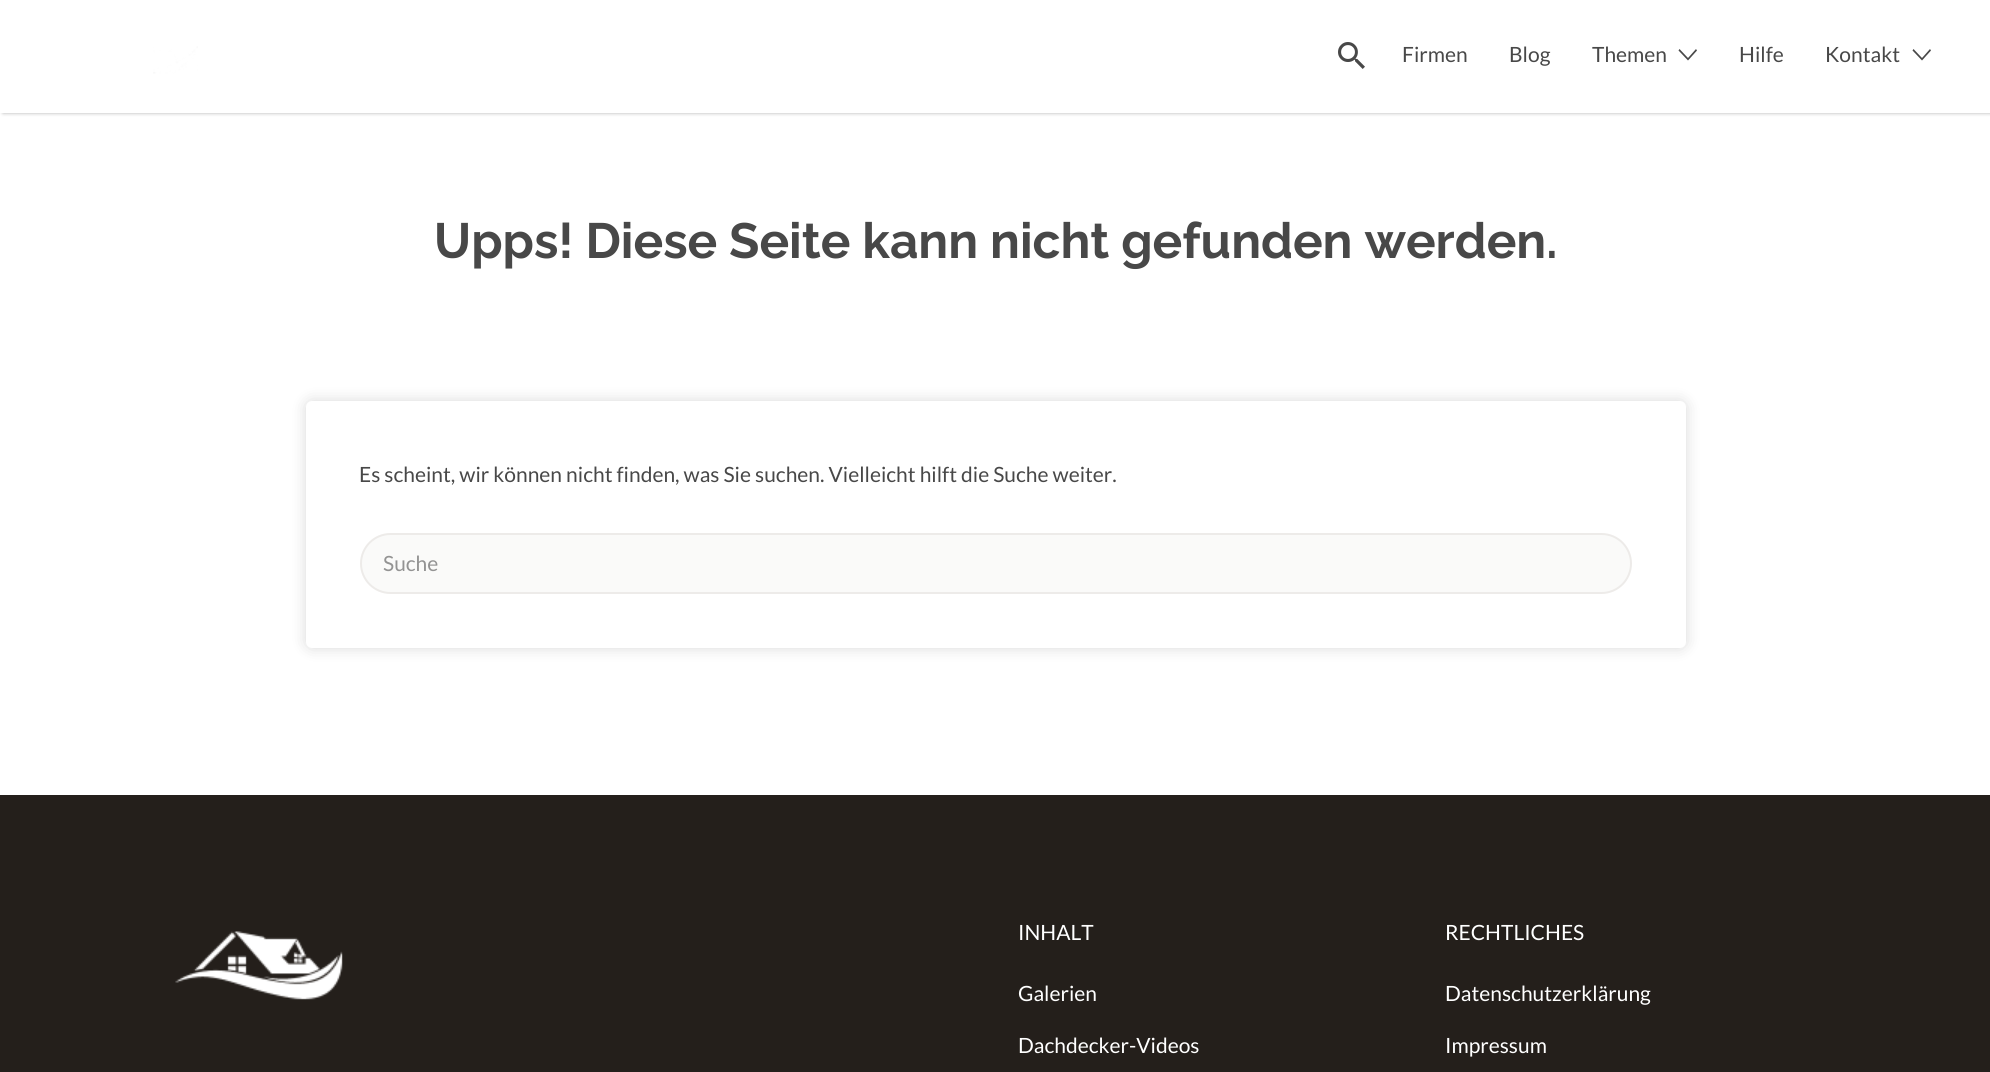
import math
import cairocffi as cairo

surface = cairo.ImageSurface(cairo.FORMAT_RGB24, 1990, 1072)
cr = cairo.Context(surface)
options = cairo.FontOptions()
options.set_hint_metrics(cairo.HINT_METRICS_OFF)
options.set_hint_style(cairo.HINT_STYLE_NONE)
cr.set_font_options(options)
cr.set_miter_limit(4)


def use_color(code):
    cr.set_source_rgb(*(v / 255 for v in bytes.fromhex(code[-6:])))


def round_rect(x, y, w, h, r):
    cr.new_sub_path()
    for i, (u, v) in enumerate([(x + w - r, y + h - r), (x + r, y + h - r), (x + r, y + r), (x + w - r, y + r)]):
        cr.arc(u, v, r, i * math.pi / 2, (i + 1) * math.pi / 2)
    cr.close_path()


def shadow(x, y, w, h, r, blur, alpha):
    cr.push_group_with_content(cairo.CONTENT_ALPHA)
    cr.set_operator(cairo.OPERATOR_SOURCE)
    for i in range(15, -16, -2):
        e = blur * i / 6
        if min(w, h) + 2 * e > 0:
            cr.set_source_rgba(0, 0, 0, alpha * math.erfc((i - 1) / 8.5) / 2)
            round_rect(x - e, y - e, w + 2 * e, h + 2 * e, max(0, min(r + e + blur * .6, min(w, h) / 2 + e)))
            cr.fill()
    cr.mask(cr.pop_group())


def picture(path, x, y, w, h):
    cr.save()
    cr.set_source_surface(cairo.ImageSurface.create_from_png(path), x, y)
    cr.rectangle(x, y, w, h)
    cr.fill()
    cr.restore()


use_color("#ffffff")
cr.paint()
use_color("#000000")
shadow(3, 0, 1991, 113, 0, 2, 0.3)
use_color("#ffffff")
cr.rectangle(0, 0, 1990, 113)
cr.fill()
picture("img1.png", 153, 46, 45, 28)
picture("img2.png", 1338, 42, 27, 27)
cr.select_font_face("Lato")
cr.set_font_size(21)
use_color("#484848")
cr.move_to(1402, 62)
cr.show_text("Firmen")
cr.move_to(1509, 62)
cr.show_text("Blog")
cr.move_to(1592, 62)
cr.show_text("Themen")
cr.new_path()
cr.move_to(1696, 49)
cr.line_to(1697, 50.5)
cr.line_to(1688, 60.5)
cr.line_to(1678.5, 50.5)
cr.line_to(1679.5, 49)
cr.line_to(1688, 58)
cr.close_path()
cr.fill()
cr.move_to(1739, 62)
cr.show_text("Hilfe")
cr.move_to(1825, 62)
cr.show_text("Kontakt")
cr.new_path()
cr.move_to(1930, 49)
cr.line_to(1931, 50.5)
cr.line_to(1922, 60.5)
cr.line_to(1912.5, 50.5)
cr.line_to(1913.5, 49)
cr.line_to(1922, 58)
cr.close_path()
cr.fill()
cr.select_font_face("Raleway", cairo.FONT_SLANT_NORMAL, cairo.FONT_WEIGHT_BOLD)
cr.set_font_size(49.5)
cr.move_to(434, 258)
cr.show_text("Upps! Diese Seite kann nicht gefunden werden.")
use_color("#000000")
shadow(306, 401, 1380, 247, 6, 7.5, 0.15)
use_color("#ffffff")
round_rect(307, 402, 1378, 245, 5)
cr.fill_preserve()
cr.stroke()
cr.select_font_face("Lato")
cr.set_font_size(21)
use_color("#484848")
cr.move_to(359, 482)
cr.show_text("Es scheint, wir können nicht finden, was Sie suchen. Vielleicht hilft die Suche weiter.")
use_color("#fafaf9")
round_rect(361, 534, 1270, 59, 29.5)
cr.fill_preserve()
use_color("#edebe9")
cr.stroke()
use_color("#939393")
cr.move_to(383, 571)
cr.show_text("Suche")
use_color("#241f1b")
cr.rectangle(0, 795, 1990, 277)
cr.fill()
picture("img3.png", 175, 931, 168, 69)
use_color("#ffffff")
cr.move_to(1018, 940)
cr.show_text("INHALT")
cr.move_to(1018, 1001)
cr.show_text("Galerien")
cr.move_to(1018, 1053)
cr.show_text("Dachdecker-Videos")
cr.move_to(1445, 940)
cr.show_text("RECHTLICHES")
cr.move_to(1445, 1001)
cr.show_text("Datenschutzerklärung")
cr.move_to(1445, 1053)
cr.show_text("Impressum")
surface.write_to_png("result.png")
